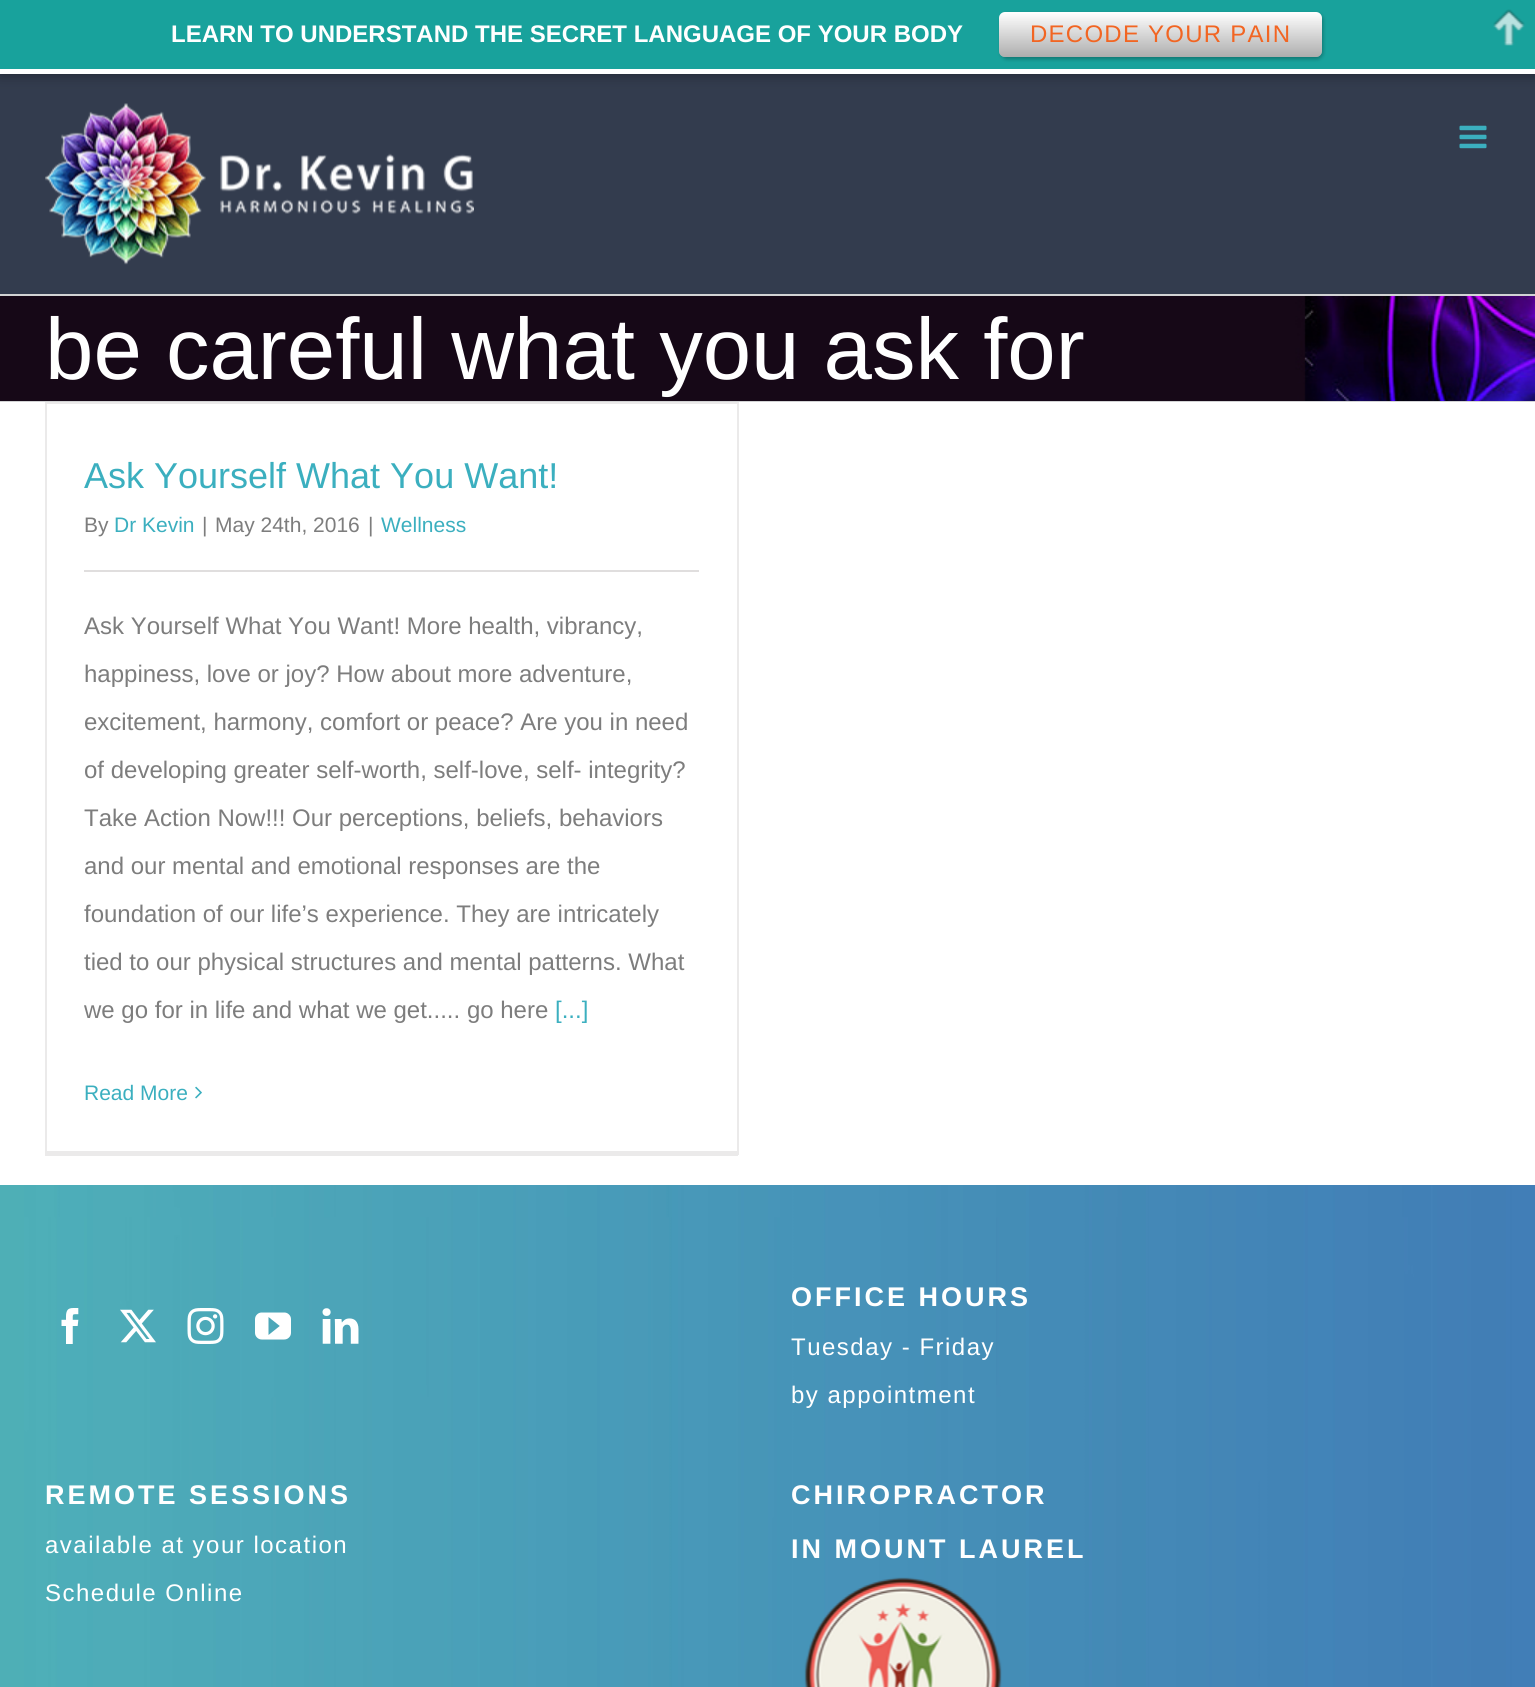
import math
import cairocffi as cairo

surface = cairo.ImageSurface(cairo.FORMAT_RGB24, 1535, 1687)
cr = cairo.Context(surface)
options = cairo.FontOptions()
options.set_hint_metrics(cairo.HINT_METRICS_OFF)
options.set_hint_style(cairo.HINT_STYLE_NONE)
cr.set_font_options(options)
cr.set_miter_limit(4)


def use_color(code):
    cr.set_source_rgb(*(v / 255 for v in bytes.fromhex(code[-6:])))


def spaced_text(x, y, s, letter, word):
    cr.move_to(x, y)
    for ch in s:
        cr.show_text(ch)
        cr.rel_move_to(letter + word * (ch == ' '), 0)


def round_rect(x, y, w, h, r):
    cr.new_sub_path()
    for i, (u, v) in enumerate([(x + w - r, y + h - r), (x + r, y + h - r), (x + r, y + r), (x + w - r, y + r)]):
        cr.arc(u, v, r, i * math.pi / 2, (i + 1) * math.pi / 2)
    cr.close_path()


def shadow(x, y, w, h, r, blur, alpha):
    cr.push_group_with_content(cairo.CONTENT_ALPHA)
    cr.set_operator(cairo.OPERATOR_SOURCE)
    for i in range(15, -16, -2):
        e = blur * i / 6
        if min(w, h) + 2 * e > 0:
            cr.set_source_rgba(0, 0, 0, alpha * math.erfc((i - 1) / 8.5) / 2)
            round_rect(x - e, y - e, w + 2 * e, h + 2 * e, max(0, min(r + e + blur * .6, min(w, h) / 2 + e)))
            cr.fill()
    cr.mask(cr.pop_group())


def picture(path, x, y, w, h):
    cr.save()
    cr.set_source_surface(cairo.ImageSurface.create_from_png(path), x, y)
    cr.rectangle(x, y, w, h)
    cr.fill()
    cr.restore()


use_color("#ffffff")
cr.paint()
use_color("#333c4e")
cr.rectangle(0, 74, 1535, 220)
cr.fill()
use_color("#000000")
shadow(0, 0, 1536, 74, 0, 7, 0.4)
use_color("#18a29c")
cr.rectangle(0, 0, 1535, 69)
cr.fill()
use_color("#ffffff")
cr.rectangle(0, 69, 1535, 5)
cr.fill()
cr.select_font_face("Liberation Sans", cairo.FONT_SLANT_NORMAL, cairo.FONT_WEIGHT_BOLD)
cr.set_font_size(24)
cr.move_to(171, 42)
cr.show_text("LEARN TO UNDERSTAND THE SECRET LANGUAGE OF YOUR BODY")
use_color("#000000")
shadow(1001, 14, 322, 45, 6, 2, 0.28)
use_color("#ffffff")
round_rect(999, 12, 323, 45, 6)
cr.fill()
gradient = cairo.LinearGradient(999, 12, 999, 57)
gradient.add_color_stop_rgba(0, 0.2, 0.2, 0.2, 0)
gradient.add_color_stop_rgba(1, 0.2, 0.2, 0.2, 0.4)
cr.set_source(gradient)
round_rect(999, 12, 323, 45, 6)
cr.fill()
cr.select_font_face("Liberation Sans")
use_color("#f26522")
spaced_text(1030, 42, "DECODE YOUR PAIN", 1.25, 0)
picture("img1.png", 1493, 9, 32, 37)
picture("img2.png", 45, 103, 429, 162)
picture("img3.png", 1459, 125, 28, 24)
picture("img4.png", 0, 296, 1535, 105)
use_color("#d2d3d4")
cr.rectangle(0, 294, 1535, 2)
cr.fill()
cr.rectangle(0, 401, 1535, 1)
cr.fill()
cr.set_font_size(87)
use_color("#ffffff")
cr.move_to(45, 379)
cr.show_text("be careful what you ask for")
use_color("#ebeaea")
cr.rectangle(45, 402, 693, 2)
cr.fill()
cr.rectangle(737, 402, 2, 753)
cr.fill()
cr.rectangle(45, 1151, 693, 5)
cr.fill()
cr.rectangle(45, 402, 2, 753)
cr.fill()
cr.set_font_size(36)
use_color("#3bafbf")
cr.move_to(84, 488)
cr.show_text("Ask Yourself What You Want!")
cr.set_font_size(21)
use_color("#7d7d7d")
cr.move_to(84, 532)
cr.show_text("By")
use_color("#3bafbf")
cr.move_to(114, 532)
cr.show_text("Dr Kevin")
use_color("#7d7d7d")
cr.move_to(202, 532)
cr.show_text("|")
cr.move_to(215, 532)
cr.show_text("May 24th, 2016")
cr.move_to(368, 532)
cr.show_text("|")
use_color("#3bafbf")
cr.move_to(381, 532)
cr.show_text("Wellness")
use_color("#e0dede")
cr.rectangle(84, 570, 615, 2)
cr.fill()
cr.set_font_size(24)
use_color("#7d7d7d")
cr.move_to(84, 634)
cr.show_text("Ask Yourself What You Want! More health, vibrancy,")
cr.move_to(84, 682)
cr.show_text("happiness, love or joy? How about more adventure,")
cr.move_to(84, 730)
cr.show_text("excitement, harmony, comfort or peace? Are you in need")
cr.move_to(84, 778)
cr.show_text("of developing greater self-worth, self-love, self- integrity?")
cr.move_to(84, 826)
cr.show_text("Take Action Now!!! Our perceptions, beliefs, behaviors")
cr.move_to(84, 874)
cr.show_text("and our mental and emotional responses are the")
cr.move_to(84, 922)
cr.show_text("foundation of our life’s experience. They are intricately")
cr.move_to(84, 970)
cr.show_text("tied to our physical structures and mental patterns. What")
cr.move_to(84, 1018)
cr.show_text("we go for in life and what we get..... go here")
use_color("#3bafbf")
cr.move_to(555, 1018)
cr.show_text("[...]")
cr.set_font_size(21)
cr.move_to(84, 1100)
cr.show_text("Read More")
picture("img5.png", 195, 1086, 7, 13)
picture("img6.png", 0, 1185, 1535, 502)
picture("img7.png", 61, 1308, 18, 36)
picture("img8.png", 120, 1309, 36, 34)
picture("img9.png", 187, 1308, 37, 36)
picture("img10.png", 255, 1312, 36, 28)
picture("img11.png", 322, 1308, 37, 36)
cr.select_font_face("Liberation Sans", cairo.FONT_SLANT_NORMAL, cairo.FONT_WEIGHT_BOLD)
cr.set_font_size(27)
use_color("#ffffff")
spaced_text(791, 1306, "OFFICE HOURS", 3, 0)
cr.select_font_face("Liberation Sans")
cr.set_font_size(24)
spaced_text(791, 1355, "Tuesday - Friday", 1.5, 0)
spaced_text(791, 1403, "by appointment", 1.5, 0)
cr.select_font_face("Liberation Sans", cairo.FONT_SLANT_NORMAL, cairo.FONT_WEIGHT_BOLD)
cr.set_font_size(27)
spaced_text(45, 1504, "REMOTE SESSIONS", 3, 0)
cr.select_font_face("Liberation Sans")
cr.set_font_size(24)
spaced_text(45, 1553, "available at your location", 1.5, 0)
spaced_text(45, 1601, "Schedule Online", 1.5, 0)
cr.select_font_face("Liberation Sans", cairo.FONT_SLANT_NORMAL, cairo.FONT_WEIGHT_BOLD)
cr.set_font_size(27)
spaced_text(791, 1504, "CHIROPRACTOR", 3, 0)
spaced_text(791, 1558, "IN MOUNT LAUREL", 3, 0)
picture("img12.png", 804, 1577, 198, 110)
surface.write_to_png("result.png")
